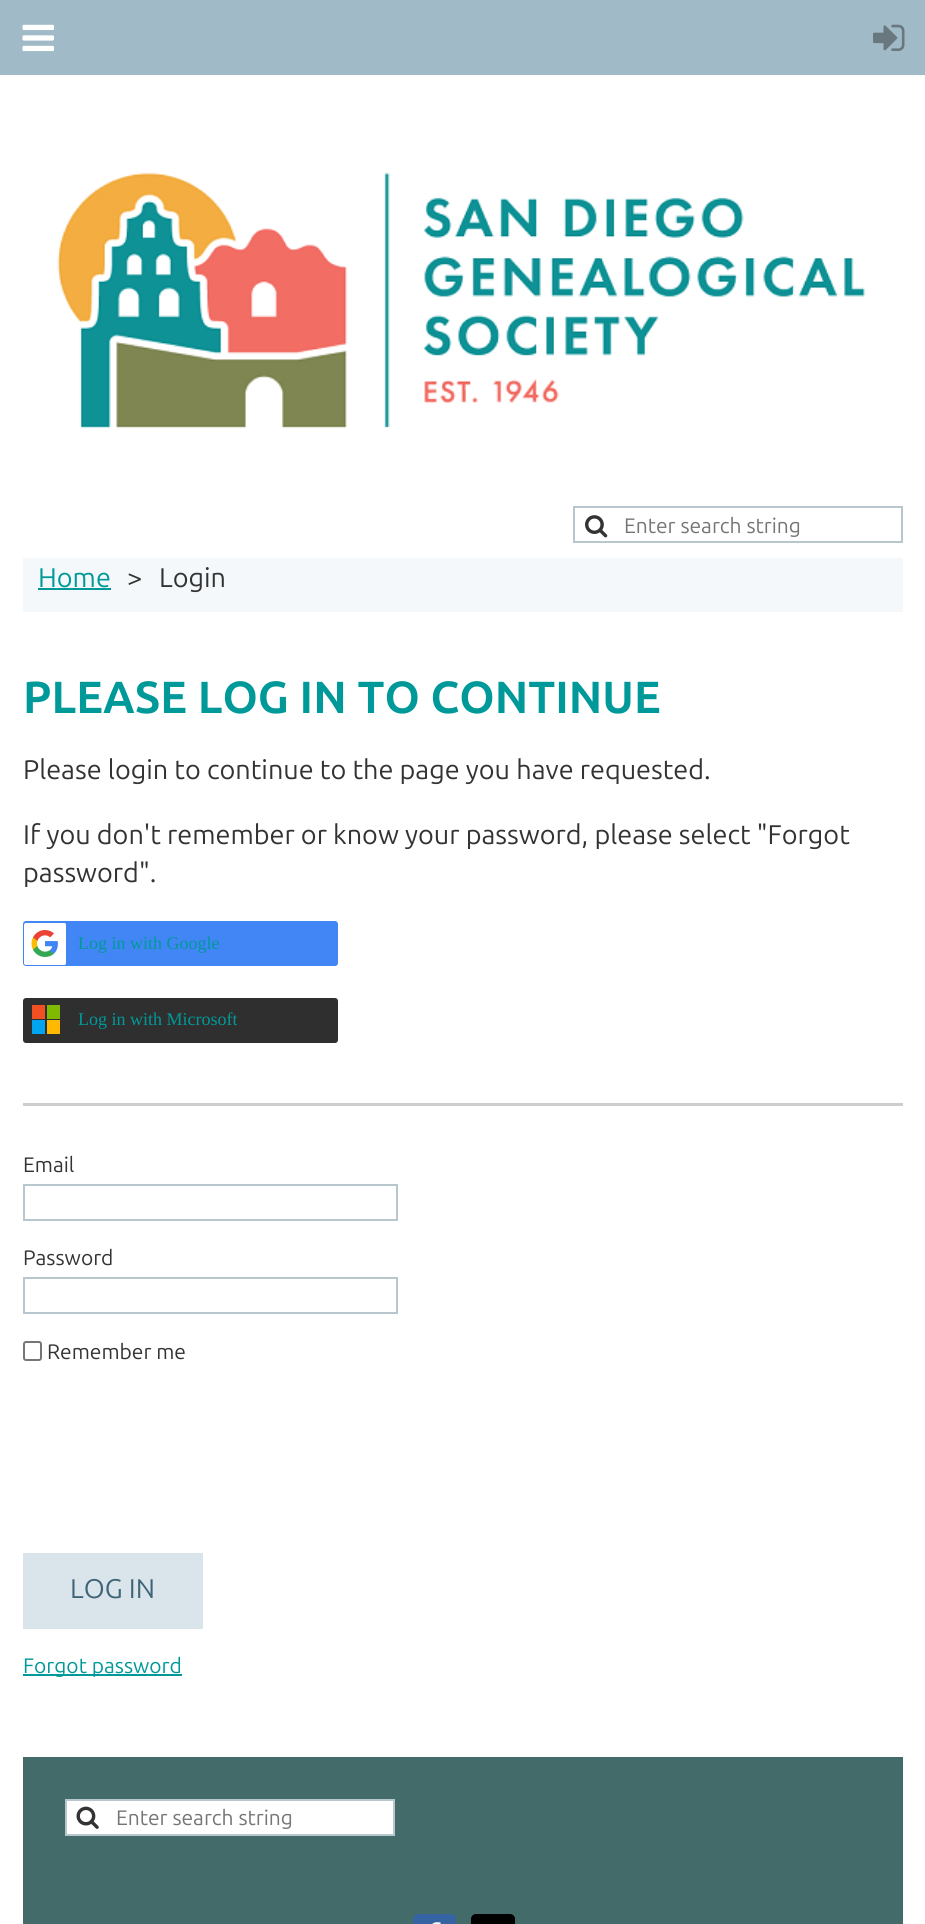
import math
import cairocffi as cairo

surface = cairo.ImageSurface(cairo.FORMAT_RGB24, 925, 1924)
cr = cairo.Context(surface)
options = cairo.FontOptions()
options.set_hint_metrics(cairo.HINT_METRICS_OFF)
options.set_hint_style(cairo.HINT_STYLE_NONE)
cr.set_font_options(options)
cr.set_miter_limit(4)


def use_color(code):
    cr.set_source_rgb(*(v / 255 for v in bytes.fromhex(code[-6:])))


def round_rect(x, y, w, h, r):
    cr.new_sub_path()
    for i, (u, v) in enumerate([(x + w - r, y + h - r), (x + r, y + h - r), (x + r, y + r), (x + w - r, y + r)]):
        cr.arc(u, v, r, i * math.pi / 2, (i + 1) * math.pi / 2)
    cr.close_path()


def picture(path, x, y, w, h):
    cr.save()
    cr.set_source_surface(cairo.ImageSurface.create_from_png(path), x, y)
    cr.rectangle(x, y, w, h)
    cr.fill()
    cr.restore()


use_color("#ffffff")
cr.paint()
use_color("#a0bac7")
cr.rectangle(0, 0, 925, 75)
cr.fill()
picture("img1.png", 22, 24, 32, 28)
picture("img2.png", 873, 24, 32, 27)
picture("img3.png", 57, 172, 809, 257)
cr.rectangle(574, 507, 328, 35)
use_color("#b8c6cd")
cr.stroke()
picture("img4.png", 585, 515, 23, 23)
cr.select_font_face("Ubuntu")
cr.set_font_size(21)
use_color("#757575")
cr.move_to(624, 533)
cr.show_text("Enter search string")
use_color("#f4f8fa")
cr.rectangle(23, 558, 880, 54)
cr.fill()
cr.set_font_size(27)
use_color("#009999")
cr.move_to(38, 587)
cr.show_text("Home")
cr.rectangle(38, 588, 73, 2)
cr.fill()
use_color("#333333")
cr.move_to(127, 587)
cr.show_text(">")
cr.move_to(159, 587)
cr.show_text("Login")
cr.select_font_face("Ubuntu", cairo.FONT_SLANT_NORMAL, cairo.FONT_WEIGHT_BOLD)
cr.set_font_size(45)
use_color("#009999")
cr.move_to(23, 713)
cr.show_text("PLEASE LOG IN TO CONTINUE")
cr.select_font_face("Ubuntu")
cr.set_font_size(27)
use_color("#333333")
cr.move_to(23, 779)
cr.show_text("Please login to continue to the page you have requested.")
cr.move_to(23, 844)
cr.show_text("If you don't remember or know your password, please select \"Forgot")
cr.move_to(23, 882)
cr.show_text("password\".")
use_color("#4285f4")
round_rect(24, 922, 313, 43, 2)
cr.fill_preserve()
cr.stroke()
picture("img5.png", 24, 923, 42, 42)
cr.select_font_face("Liberation Serif")
cr.set_font_size(18)
use_color("#009999")
cr.move_to(78, 949)
cr.show_text("Log in with Google")
use_color("#2f2f2f")
round_rect(24, 999, 313, 43, 2)
cr.fill_preserve()
cr.stroke()
use_color("#f25022")
cr.rectangle(32, 1005, 13, 14)
cr.fill()
use_color("#00a4ef")
cr.rectangle(32, 1020, 13, 14)
cr.fill()
use_color("#7fba00")
cr.rectangle(47, 1005, 13, 14)
cr.fill()
use_color("#ffb900")
cr.rectangle(47, 1020, 13, 14)
cr.fill()
use_color("#009999")
cr.move_to(78, 1025)
cr.show_text("Log in with Microsoft")
use_color("#cdcdcd")
cr.rectangle(23, 1103, 880, 3)
cr.fill()
cr.select_font_face("Ubuntu")
cr.set_font_size(21)
use_color("#333333")
cr.move_to(23, 1172)
cr.show_text("Email")
cr.rectangle(24, 1185, 373, 35)
use_color("#b8c6cd")
cr.stroke()
use_color("#333333")
cr.move_to(23, 1265)
cr.show_text("Password")
cr.rectangle(24, 1278, 373, 35)
use_color("#b8c6cd")
cr.stroke()
round_rect(24, 1342, 17, 18, 2)
use_color("#767676")
cr.stroke()
use_color("#333333")
cr.move_to(47, 1359)
cr.show_text("Remember me")
use_color("#d9e5eb")
cr.rectangle(23, 1553, 180, 76)
cr.fill()
cr.set_font_size(27)
use_color("#3f6478")
cr.move_to(70, 1598)
cr.show_text("LOG IN")
use_color("#009999")
cr.rectangle(23, 1674, 159, 2)
cr.fill()
cr.set_font_size(21)
cr.move_to(23, 1673)
cr.show_text("Forgot password")
use_color("#426b69")
cr.rectangle(23, 1757, 880, 167)
cr.fill()
use_color("#ffffff")
cr.rectangle(66, 1800, 328, 35)
cr.fill_preserve()
use_color("#b8c6cd")
cr.stroke()
picture("img6.png", 76, 1806, 23, 23)
use_color("#757575")
cr.move_to(116, 1825)
cr.show_text("Enter search string")
use_color("#3664a2")
round_rect(413, 1914, 43, 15, 5)
cr.fill()
picture("img7.png", 432, 1922, 9, 2)
use_color("#000000")
round_rect(471, 1914, 44, 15, 5)
cr.fill()
surface.write_to_png("result.png")
